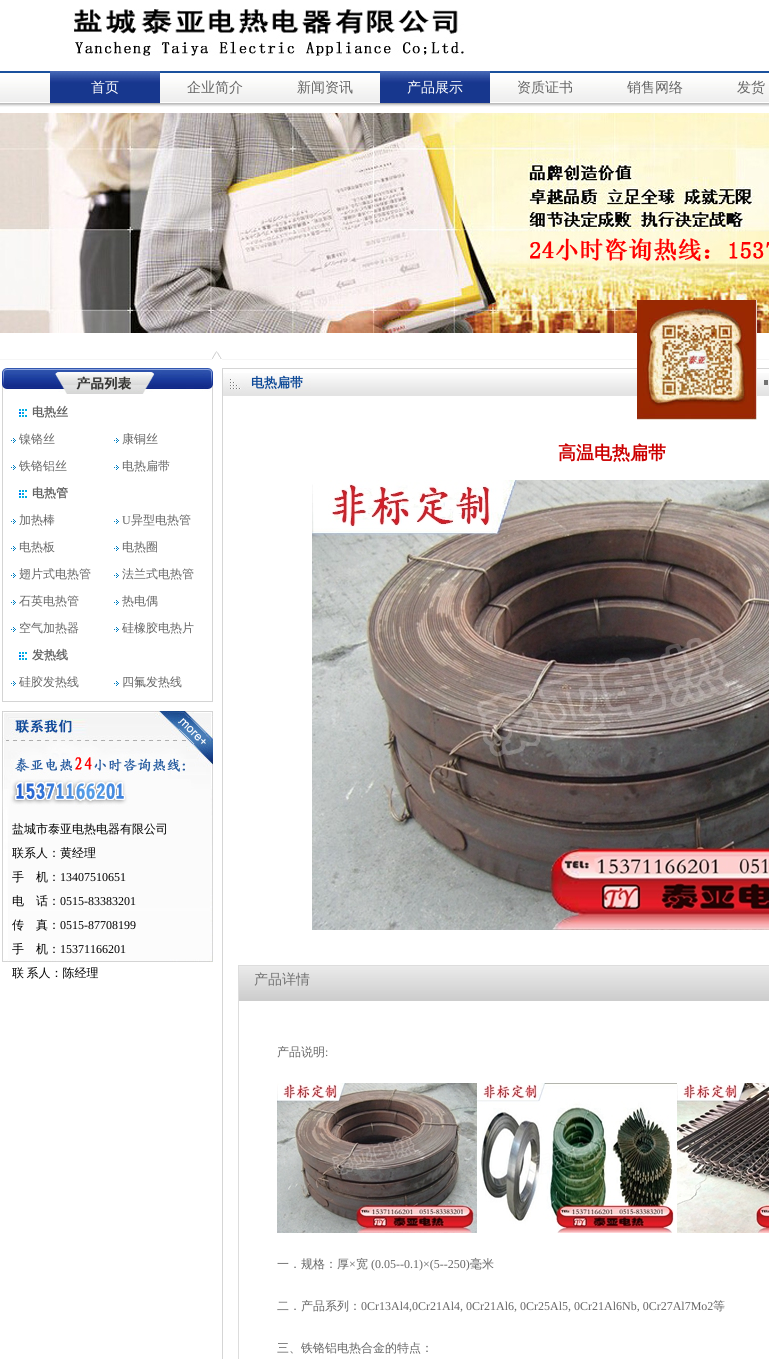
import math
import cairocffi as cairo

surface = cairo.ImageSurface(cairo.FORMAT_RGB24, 769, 1359)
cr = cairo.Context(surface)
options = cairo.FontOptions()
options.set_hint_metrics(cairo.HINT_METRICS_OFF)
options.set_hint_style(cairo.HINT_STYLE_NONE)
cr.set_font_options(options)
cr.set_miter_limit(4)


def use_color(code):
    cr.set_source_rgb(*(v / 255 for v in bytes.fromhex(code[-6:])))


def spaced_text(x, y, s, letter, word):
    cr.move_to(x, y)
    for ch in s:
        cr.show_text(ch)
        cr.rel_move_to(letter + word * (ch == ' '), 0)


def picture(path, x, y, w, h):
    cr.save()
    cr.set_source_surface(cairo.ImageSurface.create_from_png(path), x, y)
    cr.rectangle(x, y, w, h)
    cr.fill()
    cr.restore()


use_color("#ffffff")
cr.paint()
picture("img1.png", 74, 9, 390, 47)
picture("img2.png", 0, 71, 769, 36)
picture("img3.png", 50, 71, 110, 33)
cr.select_font_face("WenQuanYi Zen Hei Medium")
cr.set_font_size(14)
use_color("#ffffff")
cr.move_to(91, 92)
cr.show_text("首页")
use_color("#656565")
cr.move_to(187, 92)
cr.show_text("企业简介")
cr.move_to(297, 92)
cr.show_text("新闻资讯")
picture("img3.png", 380, 71, 110, 33)
use_color("#ffffff")
cr.move_to(407, 92)
cr.show_text("产品展示")
use_color("#656565")
cr.move_to(517, 92)
cr.show_text("资质证书")
cr.move_to(627, 92)
cr.show_text("销售网络")
cr.move_to(737, 92)
cr.show_text("发货")
picture("img4.png", 0, 113, 769, 220)
use_color("#f6f6f6")
cr.rectangle(0, 359, 769, 1)
cr.fill()
picture("img5.png", 212, 351, 10, 9)
cr.rectangle(222.5, 368.5, 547, 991)
use_color("#d5d5d5")
cr.set_line_width(1)
cr.stroke()
picture("img12.png", 223, 373, 546, 23)
picture("img6.png", 637, 300, 120, 120)
picture("img7.png", 2, 368, 211, 26)
use_color("#d4d4d4")
cr.rectangle(212, 394, 1, 308)
cr.fill()
cr.rectangle(2, 701, 211, 1)
cr.fill()
cr.rectangle(2, 394, 1, 308)
cr.fill()
picture("img8.png", 19, 409, 8, 8)
cr.select_font_face("WenQuanYi Zen Hei", cairo.FONT_SLANT_NORMAL, cairo.FONT_WEIGHT_BOLD)
cr.set_font_size(12)
use_color("#656565")
cr.move_to(32, 416)
cr.show_text("电热丝")
picture("img9.png", 11, 438, 5, 5)
cr.select_font_face("WenQuanYi Zen Hei Medium")
cr.move_to(19, 443)
cr.show_text("镍铬丝")
picture("img9.png", 114, 438, 5, 5)
cr.move_to(122, 443)
cr.show_text("康铜丝")
picture("img9.png", 11, 465, 5, 5)
cr.move_to(19, 470)
cr.show_text("铁铬铝丝")
picture("img9.png", 114, 465, 5, 5)
cr.move_to(122, 470)
cr.show_text("电热扁带")
picture("img8.png", 19, 490, 8, 8)
cr.select_font_face("WenQuanYi Zen Hei", cairo.FONT_SLANT_NORMAL, cairo.FONT_WEIGHT_BOLD)
cr.move_to(32, 497)
cr.show_text("电热管")
picture("img9.png", 11, 519, 5, 5)
cr.select_font_face("WenQuanYi Zen Hei Medium")
cr.move_to(19, 524)
cr.show_text("加热棒")
picture("img9.png", 114, 519, 5, 5)
cr.select_font_face("Liberation Serif")
cr.move_to(122, 524)
cr.show_text("U")
cr.select_font_face("WenQuanYi Zen Hei Medium")
cr.move_to(131, 524)
cr.show_text("异型电热管")
picture("img9.png", 11, 546, 5, 5)
cr.move_to(19, 551)
cr.show_text("电热板")
picture("img9.png", 114, 546, 5, 5)
cr.move_to(122, 551)
cr.show_text("电热圈")
picture("img9.png", 11, 573, 5, 5)
cr.move_to(19, 578)
cr.show_text("翅片式电热管")
picture("img9.png", 114, 573, 5, 5)
cr.move_to(122, 578)
cr.show_text("法兰式电热管")
picture("img9.png", 11, 600, 5, 5)
cr.move_to(19, 605)
cr.show_text("石英电热管")
picture("img9.png", 114, 600, 5, 5)
cr.move_to(122, 605)
cr.show_text("热电偶")
picture("img9.png", 11, 627, 5, 5)
cr.move_to(19, 632)
cr.show_text("空气加热器")
picture("img9.png", 114, 627, 5, 5)
cr.move_to(122, 632)
cr.show_text("硅橡胶电热片")
picture("img8.png", 19, 652, 8, 8)
cr.select_font_face("WenQuanYi Zen Hei", cairo.FONT_SLANT_NORMAL, cairo.FONT_WEIGHT_BOLD)
cr.move_to(32, 659)
cr.show_text("发热线")
picture("img9.png", 11, 681, 5, 5)
cr.select_font_face("WenQuanYi Zen Hei Medium")
cr.move_to(19, 686)
cr.show_text("硅胶发热线")
picture("img9.png", 114, 681, 5, 5)
cr.move_to(122, 686)
cr.show_text("四氟发热线")
picture("img10.png", 2, 711, 211, 251)
picture("img11.png", 179, 718, 27, 26)
use_color("#000000")
cr.move_to(12, 833)
cr.show_text("盐城市泰亚电热电器有限公司")
cr.move_to(12, 857)
cr.show_text("联系人：黄经理")
cr.move_to(12, 881)
cr.show_text("手")
cr.move_to(36, 881)
cr.show_text("机：")
cr.select_font_face("Liberation Serif")
cr.move_to(60, 881)
cr.show_text("13407510651")
cr.select_font_face("WenQuanYi Zen Hei Medium")
cr.move_to(12, 905)
cr.show_text("电")
cr.move_to(36, 905)
cr.show_text("话：")
cr.select_font_face("Liberation Serif")
cr.move_to(60, 905)
cr.show_text("0515-83383201")
cr.select_font_face("WenQuanYi Zen Hei Medium")
cr.move_to(12, 929)
cr.show_text("传")
cr.move_to(36, 929)
cr.show_text("真：")
cr.select_font_face("Liberation Serif")
cr.move_to(60, 929)
cr.show_text("0515-87708199")
cr.select_font_face("WenQuanYi Zen Hei Medium")
cr.move_to(12, 953)
cr.show_text("手")
cr.move_to(36, 953)
cr.show_text("机：")
cr.select_font_face("Liberation Serif")
cr.move_to(60, 953)
cr.show_text("15371166201")
cr.select_font_face("WenQuanYi Zen Hei Medium")
spaced_text(12, 977, "联 系人：陈经理", 0, -1)
cr.select_font_face("WenQuanYi Zen Hei", cairo.FONT_SLANT_NORMAL, cairo.FONT_WEIGHT_BOLD)
cr.set_font_size(13)
use_color("#0f4a98")
cr.move_to(251, 387)
cr.show_text("电热扁带")
use_color("#727272")
cr.rectangle(764, 380, 4, 5)
cr.fill()
cr.set_font_size(18)
use_color("#cc0000")
cr.move_to(558, 459)
cr.show_text("高温电热扁带")
picture("img13.png", 312, 480, 457, 450)
cr.rectangle(238.5, 965.5, 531, 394)
use_color("#dddddd")
cr.stroke()
picture("img14.png", 239, 966, 530, 35)
cr.select_font_face("WenQuanYi Zen Hei Medium")
cr.set_font_size(14)
use_color("#717171")
cr.move_to(254, 984)
cr.show_text("产品详情")
cr.set_font_size(12)
use_color("#656565")
cr.move_to(277, 1056)
cr.show_text("产品说明")
cr.select_font_face("Liberation Serif")
cr.move_to(325, 1056)
cr.show_text(":")
picture("img15.png", 277, 1083, 200, 150)
picture("img16.png", 477, 1083, 200, 150)
picture("img17.png", 677, 1083, 92, 150)
cr.select_font_face("WenQuanYi Zen Hei Medium")
cr.move_to(277, 1268)
cr.show_text("一．规格：厚")
cr.select_font_face("Liberation Serif")
cr.move_to(349, 1268)
cr.show_text("×")
cr.select_font_face("WenQuanYi Zen Hei Medium")
cr.move_to(356, 1268)
cr.show_text("宽")
cr.select_font_face("Liberation Serif")
cr.move_to(371, 1268)
cr.show_text("(0.05--0.1)×(5--250)")
cr.select_font_face("WenQuanYi Zen Hei Medium")
cr.move_to(470, 1268)
cr.show_text("毫米")
cr.move_to(277, 1310)
cr.show_text("二．产品系列：")
cr.select_font_face("Liberation Serif")
cr.move_to(361, 1310)
cr.show_text("0Cr13Al4,0Cr21Al4, 0Cr21Al6, 0Cr25Al5, 0Cr21Al6Nb, 0Cr27Al7Mo2")
cr.select_font_face("WenQuanYi Zen Hei Medium")
cr.move_to(713, 1310)
cr.show_text("等")
cr.move_to(277, 1352)
cr.show_text("三、铁铬铝电热合金的特点：")
surface.write_to_png("result.png")
